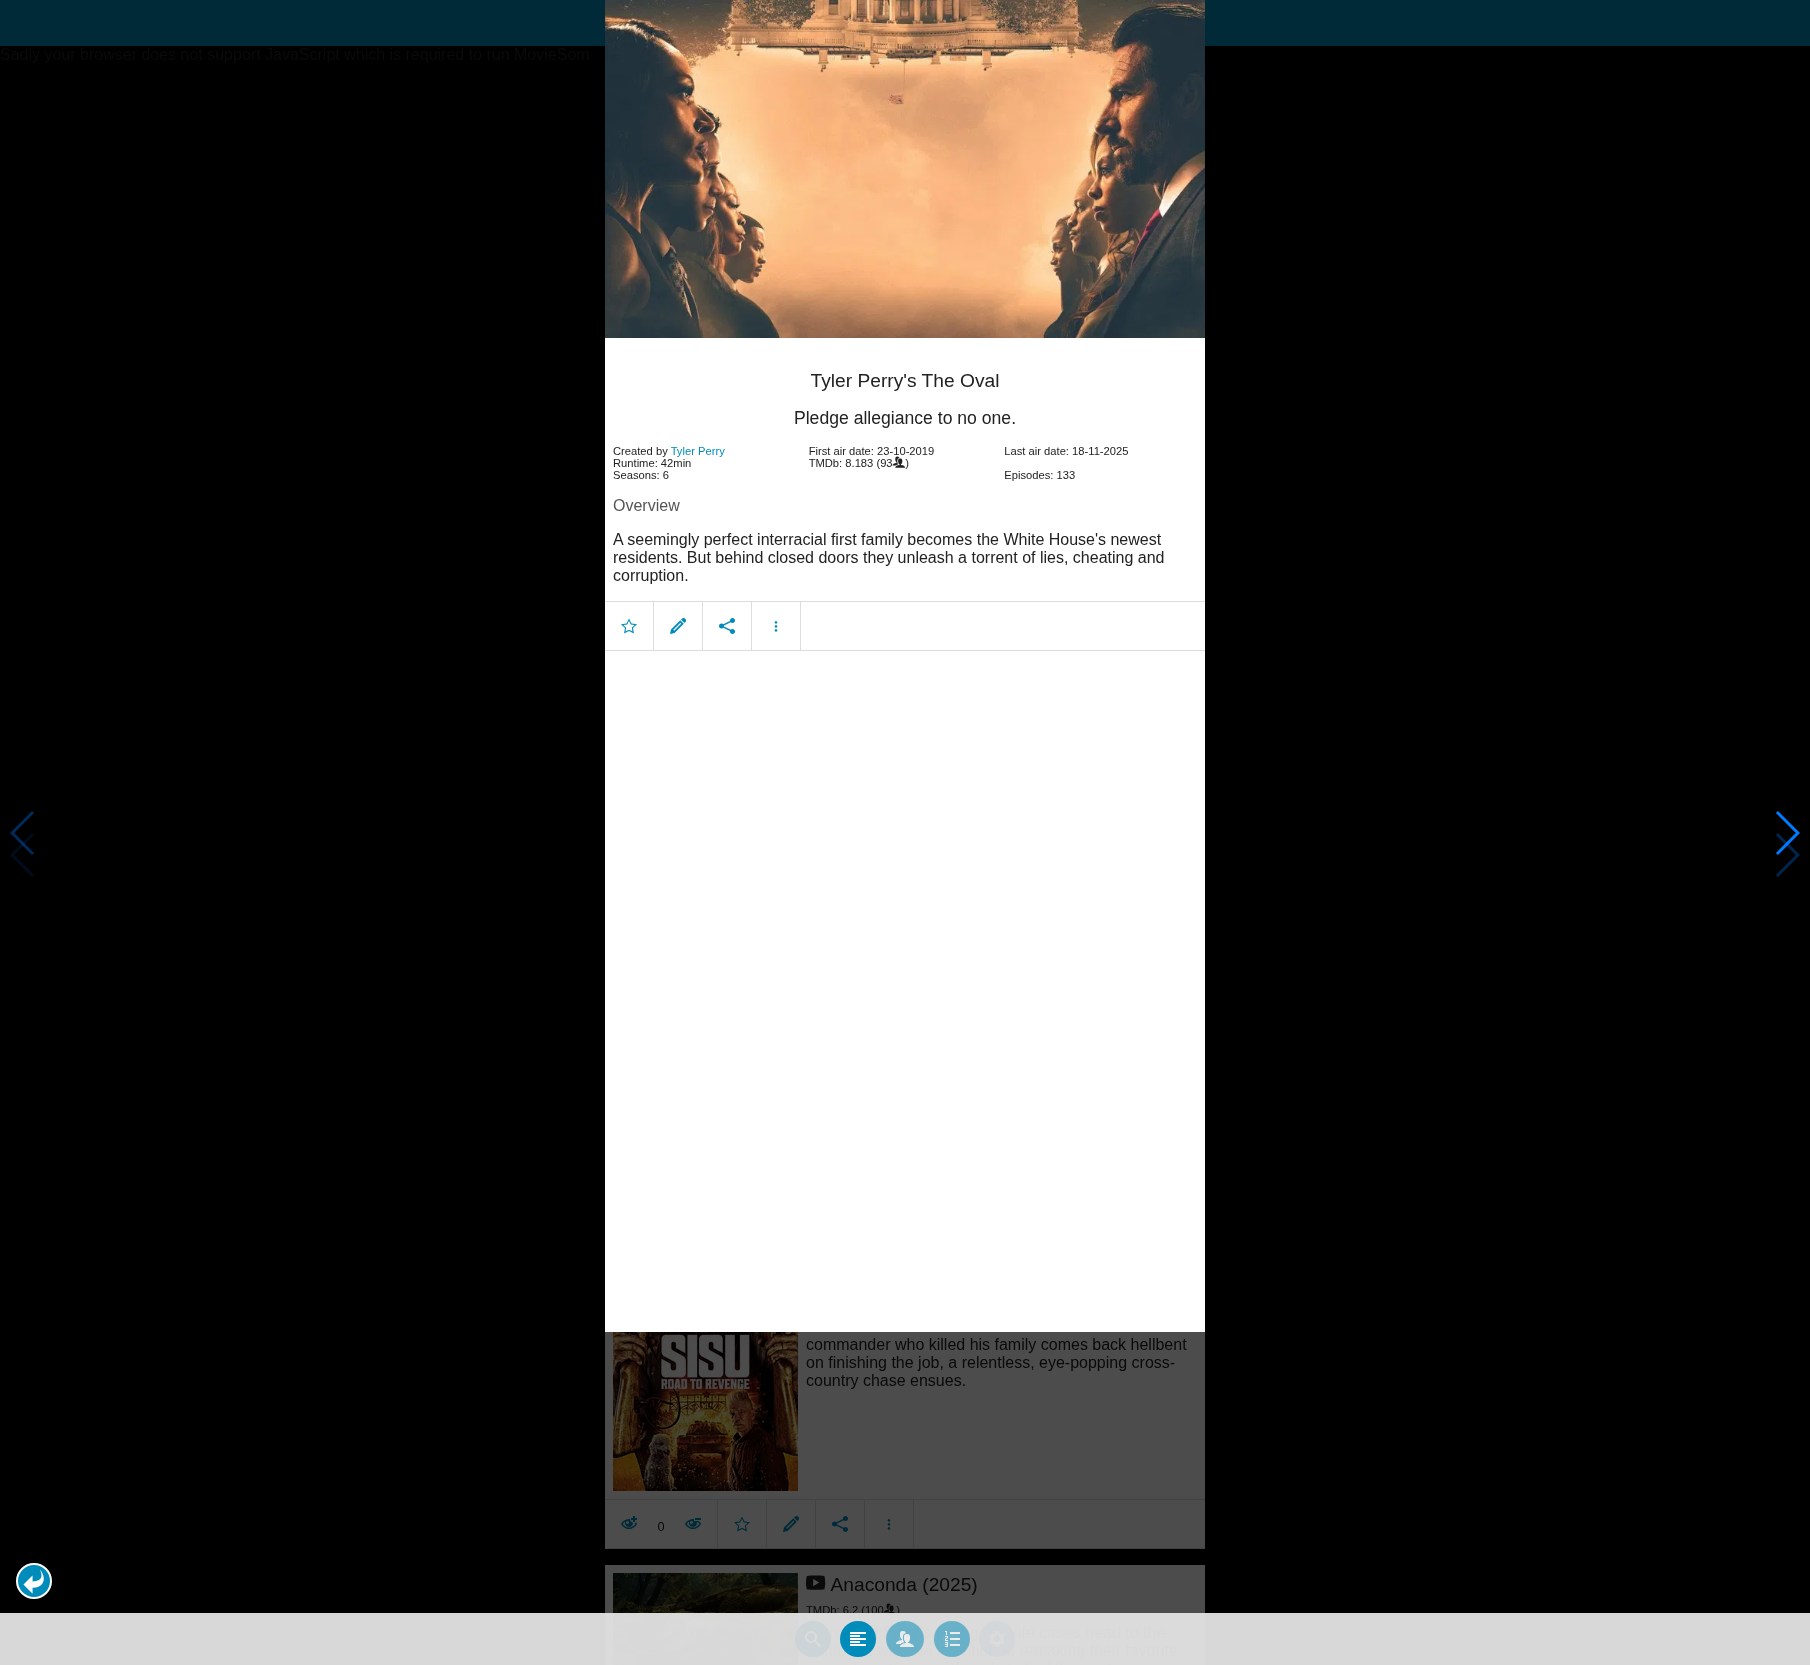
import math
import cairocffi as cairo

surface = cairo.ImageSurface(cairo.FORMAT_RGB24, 1810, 1665)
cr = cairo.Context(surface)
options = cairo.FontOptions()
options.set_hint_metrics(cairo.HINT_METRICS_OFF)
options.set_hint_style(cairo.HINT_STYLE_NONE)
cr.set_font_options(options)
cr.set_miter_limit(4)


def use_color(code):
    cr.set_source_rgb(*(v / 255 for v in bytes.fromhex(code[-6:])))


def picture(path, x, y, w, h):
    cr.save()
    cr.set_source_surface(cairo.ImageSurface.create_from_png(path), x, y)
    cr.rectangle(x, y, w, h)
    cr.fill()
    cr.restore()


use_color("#ffffff")
cr.paint()
picture("img1.png", 0, 0, 1810, 1665)
surface.write_to_png("result.png")
